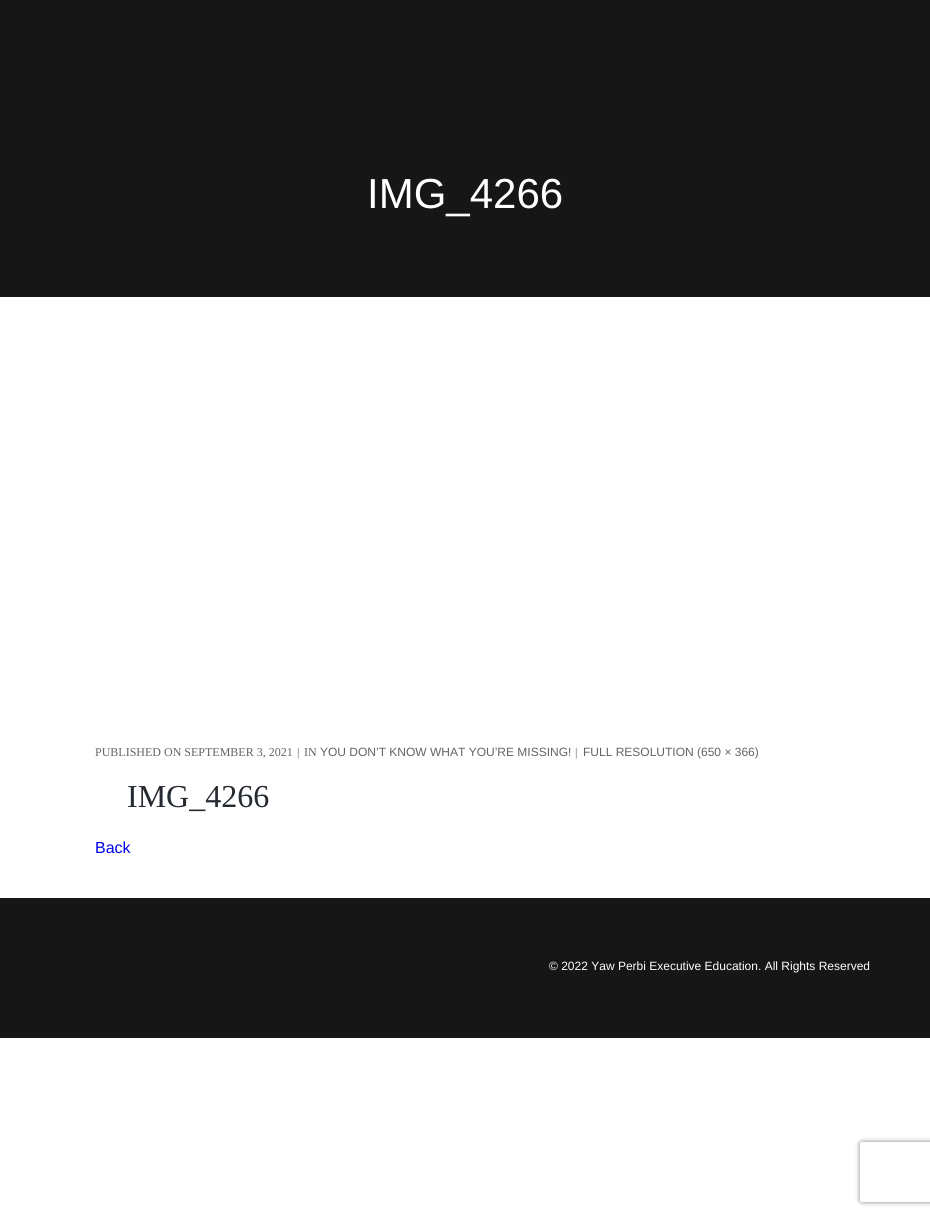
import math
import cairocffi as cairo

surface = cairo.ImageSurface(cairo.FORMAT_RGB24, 930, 1216)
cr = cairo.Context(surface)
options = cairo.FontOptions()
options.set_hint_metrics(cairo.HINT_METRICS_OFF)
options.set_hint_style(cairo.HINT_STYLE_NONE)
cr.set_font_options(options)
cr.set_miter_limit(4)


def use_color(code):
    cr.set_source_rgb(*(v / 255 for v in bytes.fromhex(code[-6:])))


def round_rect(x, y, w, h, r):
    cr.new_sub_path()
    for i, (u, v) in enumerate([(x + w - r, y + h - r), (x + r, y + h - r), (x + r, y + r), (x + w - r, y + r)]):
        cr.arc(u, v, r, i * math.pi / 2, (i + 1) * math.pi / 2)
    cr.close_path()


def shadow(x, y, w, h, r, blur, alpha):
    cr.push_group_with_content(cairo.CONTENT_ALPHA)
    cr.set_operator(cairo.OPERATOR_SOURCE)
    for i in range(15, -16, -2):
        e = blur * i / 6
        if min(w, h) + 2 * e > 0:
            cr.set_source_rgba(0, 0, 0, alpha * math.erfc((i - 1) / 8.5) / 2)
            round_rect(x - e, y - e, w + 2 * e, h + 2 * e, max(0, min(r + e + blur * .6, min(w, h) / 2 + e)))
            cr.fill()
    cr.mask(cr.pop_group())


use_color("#ffffff")
cr.paint()
use_color("#161616")
cr.rectangle(0, 90, 930, 207)
cr.fill()
use_color("#000000")
shadow(0, 10, 930, 90, 0, 10, 0.1)
use_color("#161616")
cr.rectangle(0, 0, 930, 90)
cr.fill()
cr.select_font_face("Liberation Sans")
cr.set_font_size(42)
use_color("#ffffff")
cr.move_to(367, 208)
cr.show_text("IMG_4266")
cr.select_font_face("Liberation Serif")
cr.set_font_size(12)
use_color("#636363")
cr.move_to(95, 756)
cr.show_text("PUBLISHED ON SEPTEMBER 3, 2021")
cr.move_to(297, 756)
cr.show_text("|")
cr.move_to(304, 756)
cr.show_text("IN")
cr.select_font_face("Liberation Sans")
cr.move_to(320, 756)
cr.show_text("YOU DON’T KNOW WHAT YOU’RE MISSING!")
cr.select_font_face("Liberation Serif")
cr.move_to(575, 756)
cr.show_text("|")
cr.select_font_face("Liberation Sans")
cr.move_to(583, 756)
cr.show_text("FULL RESOLUTION (650 × 366)")
cr.select_font_face("Liberation Serif")
cr.set_font_size(32)
use_color("#252b31")
cr.move_to(127, 807)
cr.show_text("IMG_4266")
cr.select_font_face("Liberation Sans")
cr.set_font_size(16)
use_color("#0000ee")
cr.move_to(95, 853)
cr.show_text("Back")
use_color("#161616")
cr.rectangle(0, 898, 930, 140)
cr.fill()
cr.set_font_size(12)
use_color("#ffffff")
cr.move_to(549, 970)
cr.show_text("© 2022 Yaw Perbi Executive Education. All Rights Reserved")
cr.save()
cr.set_fill_rule(cairo.FILL_RULE_EVEN_ODD)
cr.new_path()
cr.move_to(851, 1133)
cr.line_to(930, 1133)
cr.line_to(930, 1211)
cr.line_to(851, 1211)
cr.close_path()
cr.move_to(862, 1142)
cr.line_to(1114, 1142)
cr.curve_to(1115, 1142, 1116, 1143, 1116, 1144)
cr.line_to(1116, 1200)
cr.curve_to(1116, 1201, 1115, 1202, 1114, 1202)
cr.line_to(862, 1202)
cr.curve_to(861, 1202, 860, 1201, 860, 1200)
cr.line_to(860, 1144)
cr.curve_to(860, 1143, 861, 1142, 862, 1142)
cr.close_path()
cr.clip()
use_color("#808080")
shadow(860, 1142, 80, 60, 2, 2.5, 1)
cr.restore()
surface.write_to_png("result.png")
